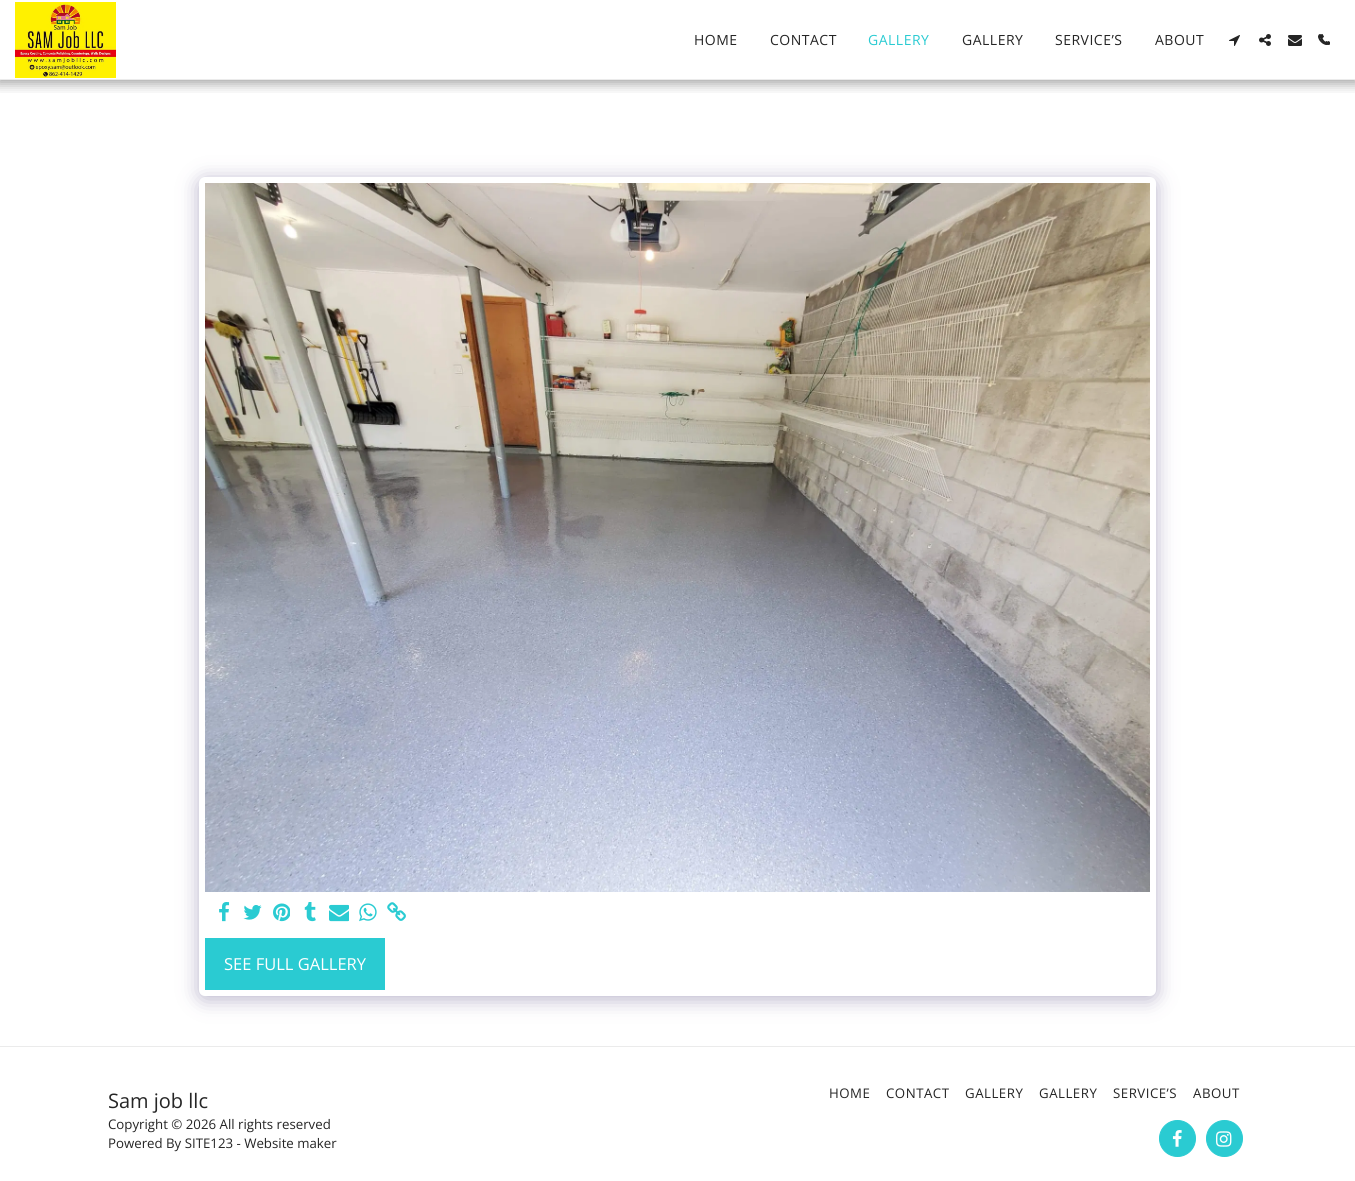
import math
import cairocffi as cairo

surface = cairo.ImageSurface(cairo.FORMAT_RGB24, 1355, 1181)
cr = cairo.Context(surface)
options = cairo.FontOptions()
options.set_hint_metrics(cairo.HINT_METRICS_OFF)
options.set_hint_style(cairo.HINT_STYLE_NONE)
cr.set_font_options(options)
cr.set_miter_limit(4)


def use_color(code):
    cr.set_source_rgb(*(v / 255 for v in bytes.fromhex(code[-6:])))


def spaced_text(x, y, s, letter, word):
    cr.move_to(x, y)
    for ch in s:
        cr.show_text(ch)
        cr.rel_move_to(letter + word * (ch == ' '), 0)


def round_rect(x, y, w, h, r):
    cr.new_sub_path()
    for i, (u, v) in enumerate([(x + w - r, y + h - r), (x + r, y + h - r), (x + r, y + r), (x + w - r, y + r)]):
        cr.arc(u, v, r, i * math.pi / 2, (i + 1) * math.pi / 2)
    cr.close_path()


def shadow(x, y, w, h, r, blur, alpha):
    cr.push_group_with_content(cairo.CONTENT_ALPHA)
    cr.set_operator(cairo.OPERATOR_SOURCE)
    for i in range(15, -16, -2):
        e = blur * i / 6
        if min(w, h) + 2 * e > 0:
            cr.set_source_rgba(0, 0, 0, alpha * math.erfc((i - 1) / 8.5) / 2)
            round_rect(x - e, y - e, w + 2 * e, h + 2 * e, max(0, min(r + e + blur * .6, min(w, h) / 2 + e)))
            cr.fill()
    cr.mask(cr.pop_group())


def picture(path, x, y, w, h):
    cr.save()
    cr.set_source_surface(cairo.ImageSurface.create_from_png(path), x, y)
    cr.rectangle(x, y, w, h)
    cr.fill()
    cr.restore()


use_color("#ffffff")
cr.paint()
cr.save()
cr.rectangle(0, 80, 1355, 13)
cr.clip()
use_color("#000000")
shadow(-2, 0, 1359, 84, 0, 6, 0.35)
cr.restore()
use_color("#ebebeb")
cr.rectangle(0, 79, 1355, 1)
cr.fill()
picture("img1.png", 15, 2, 101, 76)
cr.select_font_face("Open Sans")
cr.set_font_size(14)
use_color("#252525")
spaced_text(694, 45, "HOME", 0.5, 0)
spaced_text(770, 45, "CONTACT", 0.5, 0)
use_color("#2acbd2")
spaced_text(868, 45, "GALLERY", 0.5, 0)
use_color("#252525")
spaced_text(962, 45, "GALLERY", 0.5, 0)
spaced_text(1055, 45, "SERVICE’S", 0.5, 0)
spaced_text(1155, 45, "ABOUT", 0.5, 0)
picture("img2.png", 1229, 35, 11, 11)
picture("img3.png", 1259, 34, 12, 12)
picture("img4.png", 1288, 35, 14, 11)
picture("img5.png", 1320, 34, 10, 11)
picture("img6.png", 1318, 34, 10, 11)
use_color("#4d3f7a")
shadow(199, 180, 957, 819, 6, 10, 0.4)
use_color("#ffffff")
round_rect(199, 177, 957, 819, 6)
cr.fill()
picture("img7.png", 205, 183, 945, 709)
picture("img8.png", 219, 902, 11, 20)
picture("img9.png", 243, 905, 19, 15)
picture("img10.png", 273, 903, 17, 19)
picture("img11.png", 304, 902, 12, 20)
picture("img12.png", 329, 904, 20, 18)
picture("img13.png", 359, 903, 18, 19)
picture("img14.png", 387, 902, 19, 19)
use_color("#2acbd2")
cr.rectangle(205, 938, 180, 52)
cr.fill()
cr.set_font_size(16.5)
use_color("#ffffff")
cr.move_to(224, 970)
cr.show_text("SEE FULL GALLERY")
use_color("#ebebeb")
cr.rectangle(0, 1046, 1355, 1)
cr.fill()
cr.set_font_size(20)
use_color("#252525")
cr.move_to(108, 1108)
cr.show_text("Sam job llc")
cr.set_font_size(13.25)
cr.move_to(108, 1129)
cr.show_text("Copyright © 2026 All rights reserved")
cr.move_to(108, 1148)
cr.show_text("Powered By SITE123 - Website maker")
spaced_text(829, 1098, "HOME", 0.5, 0)
spaced_text(886, 1098, "CONTACT", 0.5, 0)
spaced_text(965, 1098, "GALLERY", 0.5, 0)
spaced_text(1039, 1098, "GALLERY", 0.5, 0)
spaced_text(1113, 1098, "SERVICE’S", 0.5, 0)
spaced_text(1193, 1098, "ABOUT", 0.5, 0)
use_color("#2acbd2")
cr.new_path()
cr.arc(1177.5, 1138.5, 18, 0, 2 * math.pi)
cr.fill_preserve()
cr.set_line_width(1)
cr.stroke()
picture("img15.png", 1172, 1130, 10, 17)
cr.arc(1224.5, 1138.5, 18, 0, 2 * math.pi)
cr.fill_preserve()
cr.stroke()
picture("img16.png", 1216, 1131, 16, 16)
surface.write_to_png("result.png")
